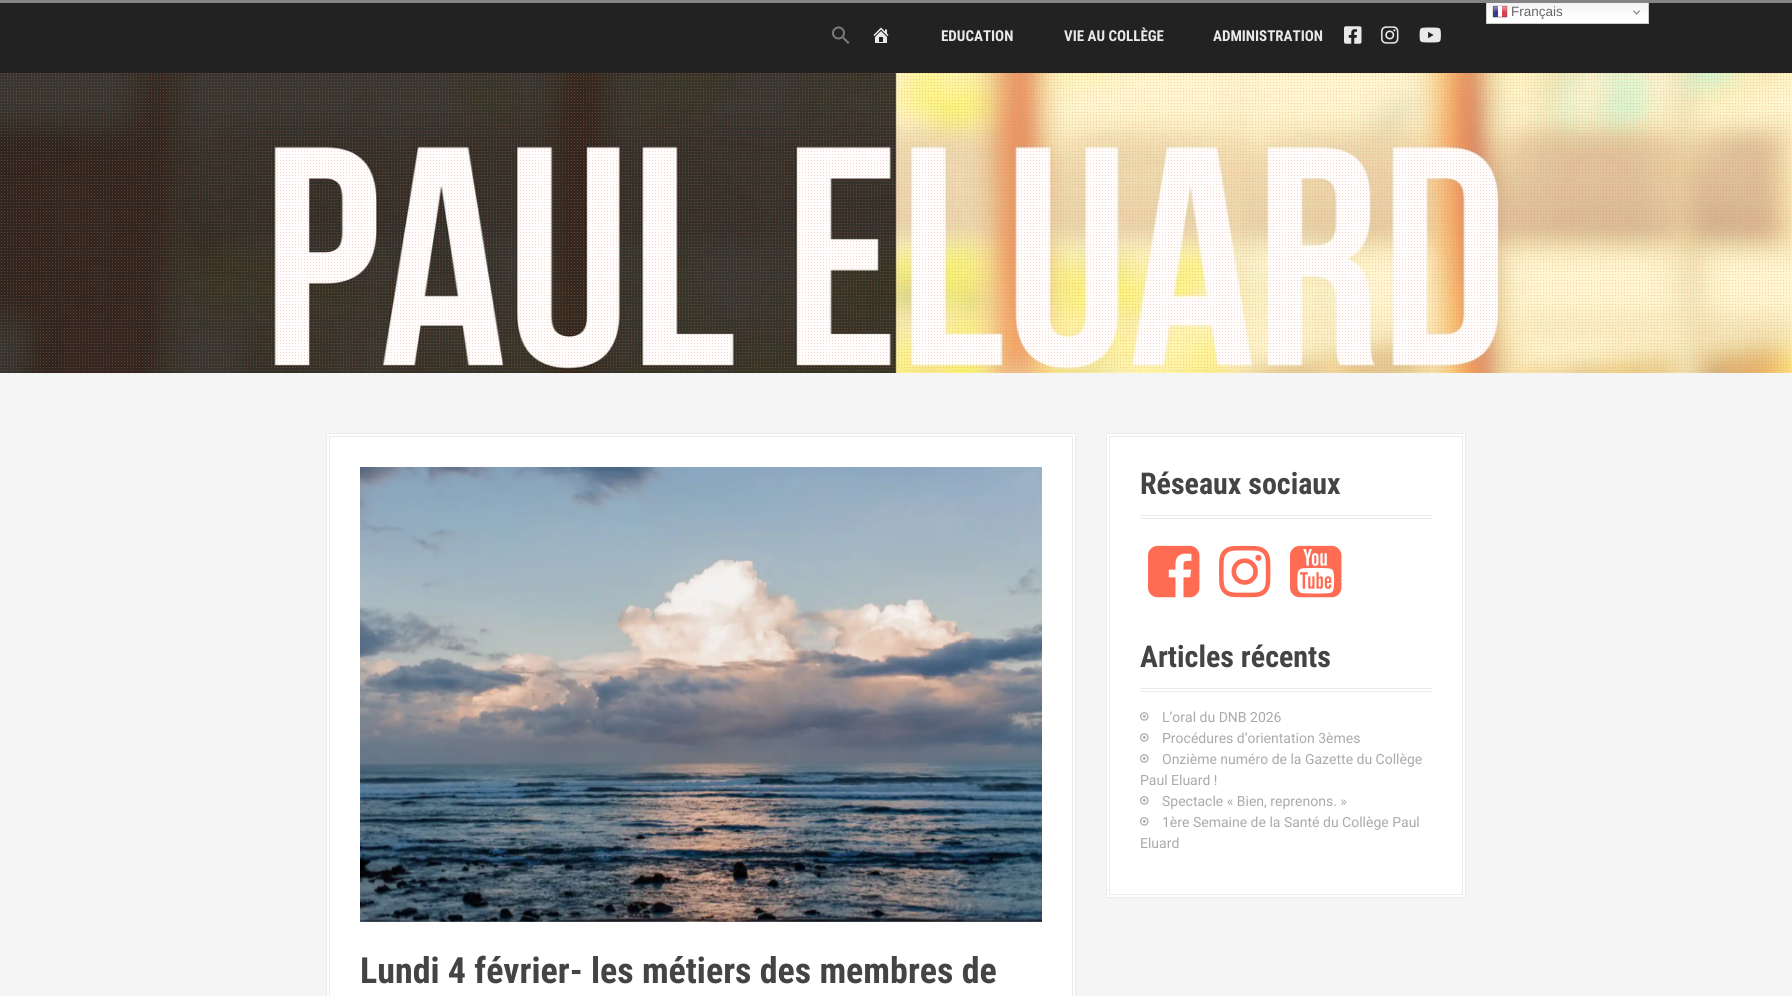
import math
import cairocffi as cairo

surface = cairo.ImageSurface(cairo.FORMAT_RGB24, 1792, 996)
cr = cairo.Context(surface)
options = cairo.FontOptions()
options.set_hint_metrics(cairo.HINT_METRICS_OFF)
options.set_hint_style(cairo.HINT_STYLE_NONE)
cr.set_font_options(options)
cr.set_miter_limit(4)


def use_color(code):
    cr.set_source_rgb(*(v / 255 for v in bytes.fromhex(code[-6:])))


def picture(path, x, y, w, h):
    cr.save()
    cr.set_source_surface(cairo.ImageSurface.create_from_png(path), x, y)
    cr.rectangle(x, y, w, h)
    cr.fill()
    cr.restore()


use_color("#f5f5f5")
cr.paint()
use_color("#222222")
cr.rectangle(0, 3, 1792, 70)
cr.fill()
gradient = cairo.LinearGradient(1568, 0, 1568, 24)
gradient.add_color_stop_rgba(0, 0.937, 0.937, 0.937, 1)
gradient.add_color_stop_rgba(0.7, 1, 1, 1, 1)
cr.set_source(gradient)
cr.rectangle(1487, 3, 161, 20)
cr.fill()
cr.rectangle(1486.5, 0.5, 162, 23)
use_color("#cccccc")
cr.set_line_width(1)
cr.stroke()
use_color("#848484")
cr.rectangle(0, 0, 1792, 3)
cr.fill()
picture("img1.png", 1492, 5, 16, 14)
cr.select_font_face("Liberation Sans")
cr.set_font_size(13.5)
use_color("#666666")
cr.move_to(1511, 16)
cr.show_text("Français")
picture("img2.png", 1633, 10, 7, 5)
picture("img3.png", 832, 26, 18, 18)
picture("img4.png", 873, 27, 16, 16)
cr.select_font_face("Roboto Condensed", cairo.FONT_SLANT_NORMAL, cairo.FONT_WEIGHT_BOLD)
cr.set_font_size(15)
use_color("#e9e9e9")
cr.move_to(941, 41)
cr.show_text("EDUCATION")
cr.move_to(1064, 41)
cr.show_text("VIE AU COLLÈGE")
cr.move_to(1213, 41)
cr.show_text("ADMINISTRATION")
picture("img5.png", 1344, 26, 18, 18)
picture("img6.png", 1381, 26, 18, 18)
picture("img7.png", 1419, 27, 22, 16)
picture("img8.png", 0, 73, 1792, 300)
picture("img9.png", 1, 73, 1789, 298)
use_color("#ffffff")
cr.rectangle(1106.5, 433.5, 359, 464)
cr.fill_preserve()
use_color("#ebebeb")
cr.stroke()
cr.rectangle(1109.5, 436.5, 353, 458)
cr.stroke()
cr.rectangle(1140, 515, 292, 1)
cr.fill()
cr.rectangle(1140, 518, 292, 1)
cr.fill()
cr.set_font_size(30)
use_color("#444444")
cr.move_to(1140, 494)
cr.show_text("Réseaux sociaux")
picture("img10.png", 1148, 545, 52, 53)
picture("img11.png", 1219, 545, 52, 53)
picture("img12.png", 1290, 545, 52, 53)
use_color("#ebebeb")
cr.rectangle(1140, 688, 292, 1)
cr.fill()
cr.rectangle(1140, 691, 292, 1)
cr.fill()
use_color("#444444")
cr.move_to(1140, 667)
cr.show_text("Articles récents")
picture("img13.png", 1140, 712, 9, 9)
cr.select_font_face("Roboto")
cr.set_font_size(14)
use_color("#aaaaaa")
cr.move_to(1162, 722)
cr.show_text("L’oral du DNB 2026")
picture("img13.png", 1140, 733, 9, 9)
cr.move_to(1162, 743)
cr.show_text("Procédures d’orientation 3èmes")
picture("img13.png", 1140, 754, 9, 9)
cr.move_to(1162, 764)
cr.show_text("Onzième numéro de la Gazette du Collège")
cr.move_to(1140, 785)
cr.show_text("Paul Eluard !")
picture("img13.png", 1140, 796, 9, 9)
cr.move_to(1162, 806)
cr.show_text("Spectacle « Bien, reprenons. »")
picture("img13.png", 1140, 817, 9, 9)
cr.move_to(1162, 827)
cr.show_text("1ère Semaine de la Santé du Collège Paul")
cr.move_to(1140, 848)
cr.show_text("Eluard")
use_color("#ffffff")
cr.rectangle(326.5, 433.5, 749, 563)
cr.fill_preserve()
use_color("#ebebeb")
cr.stroke()
cr.rectangle(329.5, 436.5, 743, 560)
cr.stroke()
picture("img14.png", 360, 467, 682, 455)
cr.select_font_face("Roboto Condensed", cairo.FONT_SLANT_NORMAL, cairo.FONT_WEIGHT_BOLD)
cr.set_font_size(36)
use_color("#444444")
cr.move_to(360, 983)
cr.show_text("Lundi 4 février- les métiers des membres de")
surface.write_to_png("result.png")
